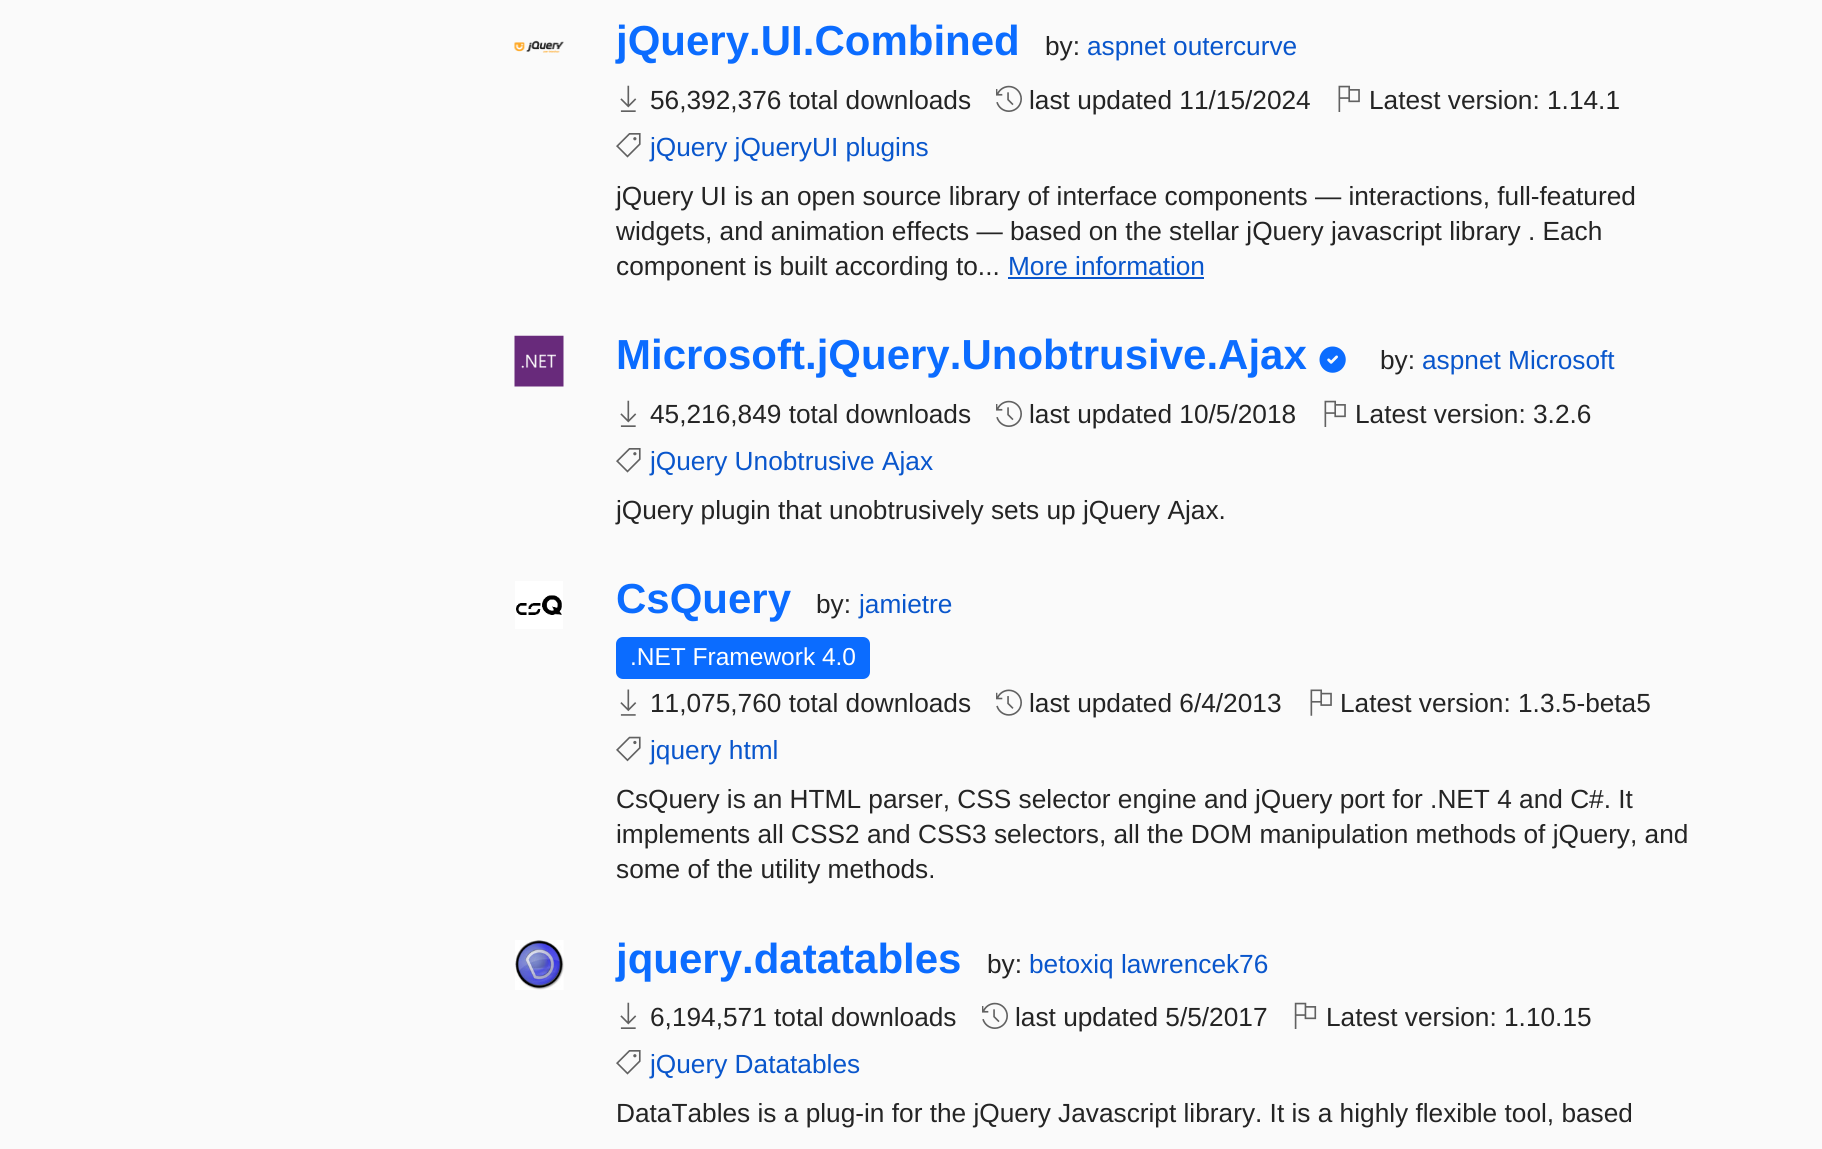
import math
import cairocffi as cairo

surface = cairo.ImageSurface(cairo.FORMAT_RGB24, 1822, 1149)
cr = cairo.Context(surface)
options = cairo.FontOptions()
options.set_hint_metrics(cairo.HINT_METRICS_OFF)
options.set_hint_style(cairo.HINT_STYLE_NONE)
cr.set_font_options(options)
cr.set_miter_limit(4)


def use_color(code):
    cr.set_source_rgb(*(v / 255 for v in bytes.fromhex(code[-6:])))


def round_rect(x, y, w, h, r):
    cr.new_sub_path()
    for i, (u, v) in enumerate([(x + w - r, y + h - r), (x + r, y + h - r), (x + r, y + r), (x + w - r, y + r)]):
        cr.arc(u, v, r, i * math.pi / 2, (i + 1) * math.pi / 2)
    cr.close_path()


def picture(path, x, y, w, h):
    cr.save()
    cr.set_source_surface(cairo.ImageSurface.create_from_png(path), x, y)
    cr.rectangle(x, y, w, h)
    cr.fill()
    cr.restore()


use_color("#fafafa")
cr.paint()
picture("img1.png", 514, 40, 50, 13)
cr.select_font_face("Liberation Sans", cairo.FONT_SLANT_NORMAL, cairo.FONT_WEIGHT_BOLD)
cr.set_font_size(42)
use_color("#0b6cff")
cr.move_to(616, 55)
cr.show_text("jQuery.UI.Combined")
cr.select_font_face("Liberation Sans")
cr.set_font_size(26.25)
use_color("#242424")
cr.move_to(1045, 55)
cr.show_text("by:")
use_color("#0956cc")
cr.move_to(1087, 55)
cr.show_text("aspnet outercurve")
picture("img2.png", 620, 85, 17, 27)
use_color("#242424")
cr.move_to(650, 109)
cr.show_text("56,392,376 total downloads")
picture("img3.png", 996, 85, 26, 27)
cr.move_to(1029, 109)
cr.show_text("last updated 11/15/2024")
picture("img4.png", 1338, 85, 22, 27)
cr.move_to(1369, 109)
cr.show_text("Latest version: 1.14.1")
picture("img5.png", 616, 133, 25, 25)
use_color("#0956cc")
cr.move_to(650, 156)
cr.show_text("jQuery jQueryUI plugins")
use_color("#242424")
cr.move_to(616, 205)
cr.show_text("jQuery UI is an open source library of interface components — interactions, full-featured")
cr.move_to(616, 240)
cr.show_text("widgets, and animation effects — based on the stellar jQuery javascript library . Each")
cr.move_to(616, 275)
cr.show_text("component is built according to...")
use_color("#0956cc")
cr.move_to(1008, 275)
cr.show_text("More information")
cr.rectangle(1008, 277, 196, 2)
cr.fill()
picture("img6.png", 514, 335, 50, 52)
cr.select_font_face("Liberation Sans", cairo.FONT_SLANT_NORMAL, cairo.FONT_WEIGHT_BOLD)
cr.set_font_size(42)
use_color("#0b6cff")
cr.move_to(616, 369)
cr.show_text("Microsoft.jQuery.Unobtrusive.Ajax")
picture("img7.png", 1319, 346, 27, 27)
cr.select_font_face("Liberation Sans")
cr.set_font_size(26.25)
use_color("#242424")
cr.move_to(1380, 369)
cr.show_text("by:")
use_color("#0956cc")
cr.move_to(1422, 369)
cr.show_text("aspnet Microsoft")
picture("img2.png", 620, 400, 17, 27)
use_color("#242424")
cr.move_to(650, 423)
cr.show_text("45,216,849 total downloads")
picture("img3.png", 996, 400, 26, 27)
cr.move_to(1029, 423)
cr.show_text("last updated 10/5/2018")
picture("img4.png", 1324, 400, 22, 27)
cr.move_to(1355, 423)
cr.show_text("Latest version: 3.2.6")
picture("img5.png", 616, 448, 25, 25)
use_color("#0956cc")
cr.move_to(650, 470)
cr.show_text("jQuery Unobtrusive Ajax")
use_color("#242424")
cr.move_to(616, 519)
cr.show_text("jQuery plugin that unobtrusively sets up jQuery Ajax.")
picture("img8.png", 515, 581, 48, 48)
cr.select_font_face("Liberation Sans", cairo.FONT_SLANT_NORMAL, cairo.FONT_WEIGHT_BOLD)
cr.set_font_size(42)
use_color("#0b6cff")
cr.move_to(616, 613)
cr.show_text("CsQuery")
cr.select_font_face("Liberation Sans")
cr.set_font_size(26.25)
use_color("#242424")
cr.move_to(816, 613)
cr.show_text("by:")
use_color("#0956cc")
cr.move_to(859, 613)
cr.show_text("jamietre")
use_color("#0b6cff")
round_rect(616, 637, 254, 42, 7)
cr.fill()
cr.set_font_size(24.5)
use_color("#ffffff")
cr.move_to(630, 665)
cr.show_text(".NET Framework 4.0")
picture("img9.png", 620, 689, 17, 27)
cr.set_font_size(26.25)
use_color("#242424")
cr.move_to(650, 712)
cr.show_text("11,075,760 total downloads")
picture("img10.png", 996, 689, 26, 27)
cr.move_to(1029, 712)
cr.show_text("last updated 6/4/2013")
picture("img11.png", 1310, 689, 22, 27)
cr.move_to(1340, 712)
cr.show_text("Latest version: 1.3.5-beta5")
picture("img12.png", 616, 736, 25, 26)
use_color("#0956cc")
cr.move_to(650, 759)
cr.show_text("jquery html")
use_color("#242424")
cr.move_to(616, 808)
cr.show_text("CsQuery is an HTML parser, CSS selector engine and jQuery port for .NET 4 and C#. It")
cr.move_to(616, 843)
cr.show_text("implements all CSS2 and CSS3 selectors, all the DOM manipulation methods of jQuery, and")
cr.move_to(616, 878)
cr.show_text("some of the utility methods.")
picture("img13.png", 515, 940, 49, 50)
cr.select_font_face("Liberation Sans", cairo.FONT_SLANT_NORMAL, cairo.FONT_WEIGHT_BOLD)
cr.set_font_size(42)
use_color("#0b6cff")
cr.move_to(616, 973)
cr.show_text("jquery.datatables")
cr.select_font_face("Liberation Sans")
cr.set_font_size(26.25)
use_color("#242424")
cr.move_to(987, 973)
cr.show_text("by:")
use_color("#0956cc")
cr.move_to(1029, 973)
cr.show_text("betoxiq lawrencek76")
picture("img2.png", 620, 1002, 17, 27)
use_color("#242424")
cr.move_to(650, 1026)
cr.show_text("6,194,571 total downloads")
picture("img3.png", 982, 1002, 26, 27)
cr.move_to(1015, 1026)
cr.show_text("last updated 5/5/2017")
picture("img14.png", 1294, 1002, 23, 27)
cr.move_to(1326, 1026)
cr.show_text("Latest version: 1.10.15")
picture("img5.png", 616, 1050, 25, 25)
use_color("#0956cc")
cr.move_to(650, 1073)
cr.show_text("jQuery Datatables")
use_color("#242424")
cr.move_to(616, 1122)
cr.show_text("DataTables is a plug-in for the jQuery Javascript library. It is a highly flexible tool, based")
surface.write_to_png("result.png")
